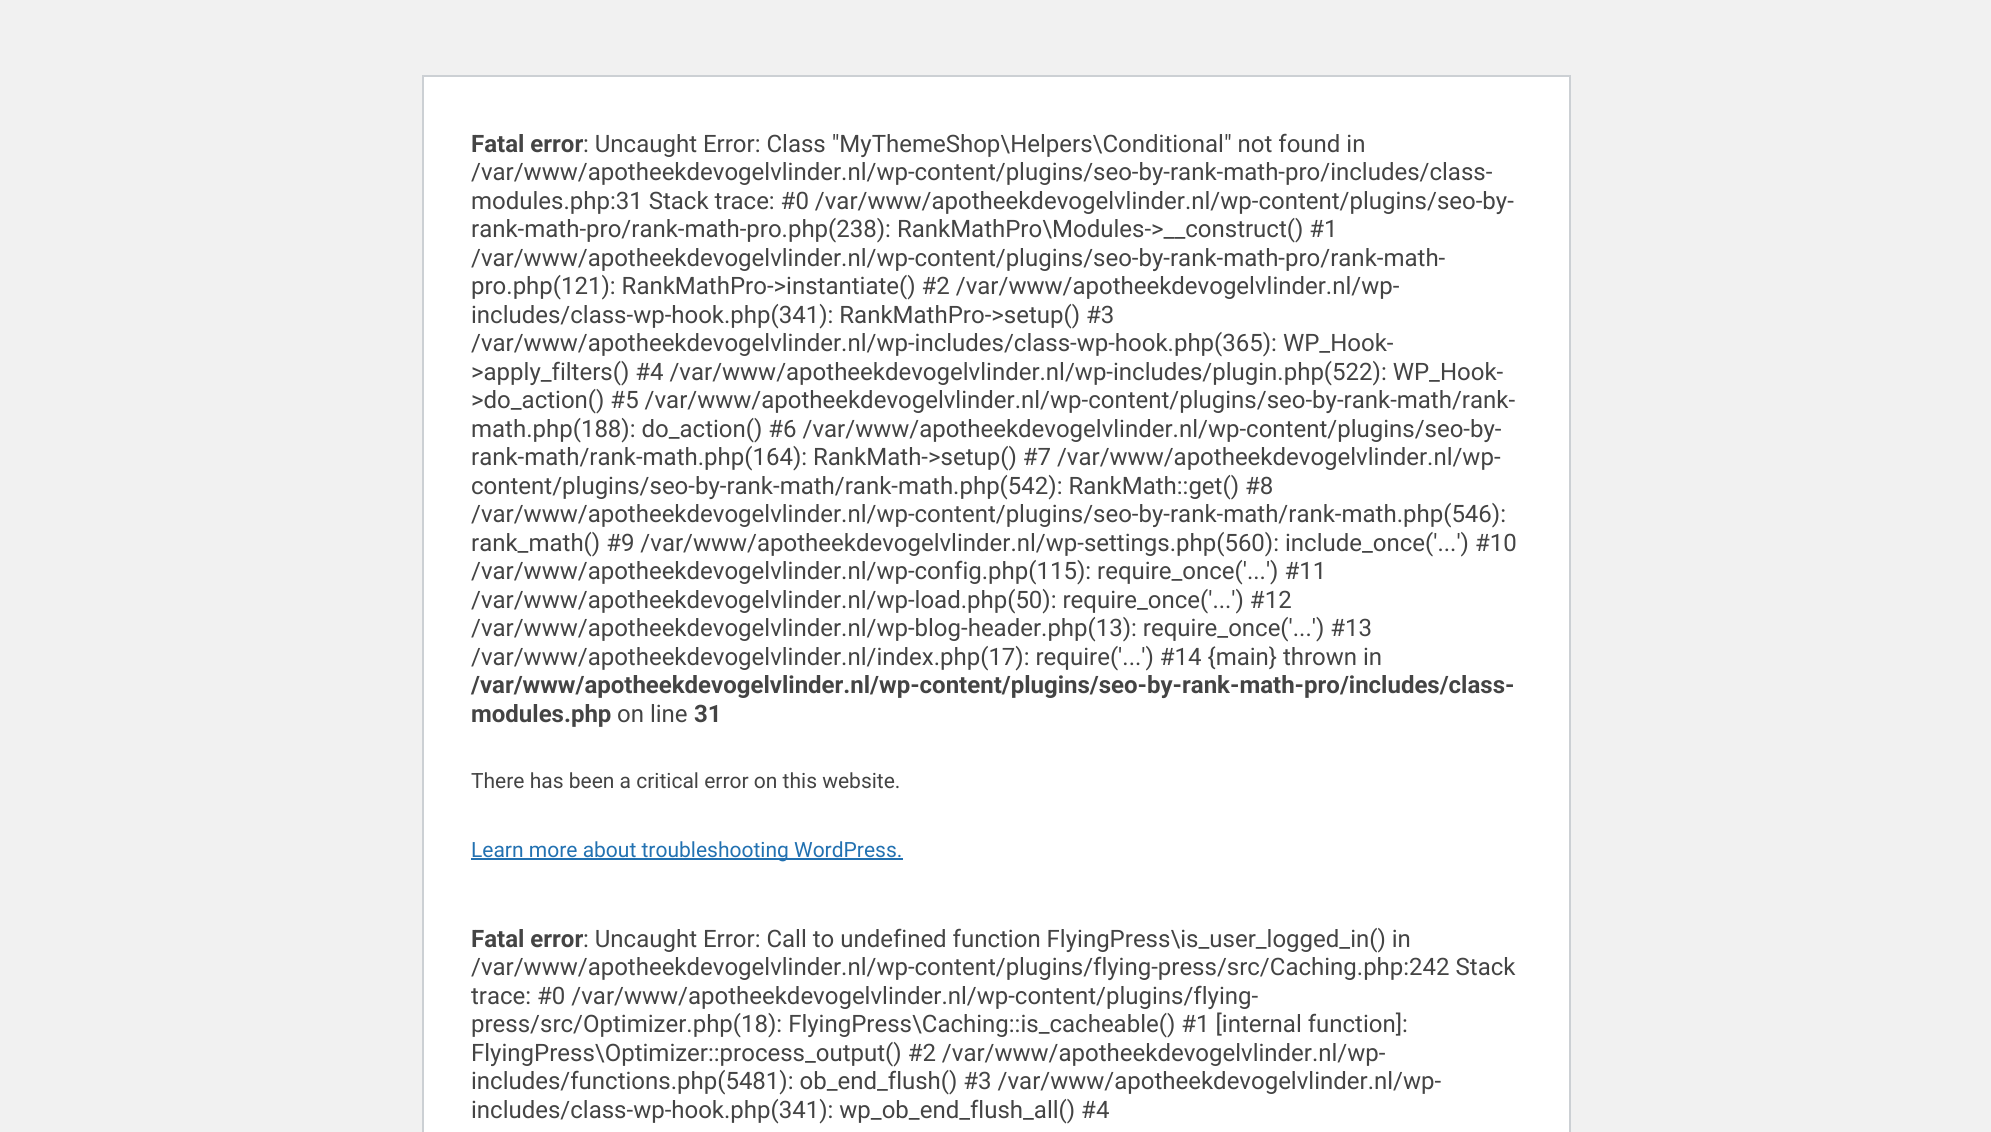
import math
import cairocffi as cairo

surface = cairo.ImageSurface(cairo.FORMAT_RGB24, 1991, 1132)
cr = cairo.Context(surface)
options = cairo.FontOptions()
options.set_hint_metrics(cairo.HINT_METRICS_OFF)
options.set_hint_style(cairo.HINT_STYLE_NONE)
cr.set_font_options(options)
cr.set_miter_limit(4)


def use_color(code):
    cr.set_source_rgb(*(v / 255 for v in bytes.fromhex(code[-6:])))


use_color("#f1f1f1")
cr.paint()
use_color("#ffffff")
cr.rectangle(423, 76, 1147, 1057)
cr.fill_preserve()
use_color("#ccd0d4")
cr.stroke()
cr.select_font_face("Roboto", cairo.FONT_SLANT_NORMAL, cairo.FONT_WEIGHT_BOLD)
cr.set_font_size(24)
use_color("#444444")
cr.move_to(471, 152)
cr.show_text("Fatal error")
cr.select_font_face("Roboto")
cr.move_to(583, 152)
cr.show_text(": Uncaught Error: Class \"MyThemeShop\\Helpers\\Conditional\" not found in")
cr.move_to(471, 180)
cr.show_text("/var/www/apotheekdevogelvlinder.nl/wp-content/plugins/seo-by-rank-math-pro/includes/class-")
cr.move_to(471, 209)
cr.show_text("modules.php:31 Stack trace: #0 /var/www/apotheekdevogelvlinder.nl/wp-content/plugins/seo-by-")
cr.move_to(471, 237)
cr.show_text("rank-math-pro/rank-math-pro.php(238): RankMathPro\\Modules->__construct() #1")
cr.move_to(471, 266)
cr.show_text("/var/www/apotheekdevogelvlinder.nl/wp-content/plugins/seo-by-rank-math-pro/rank-math-")
cr.move_to(471, 294)
cr.show_text("pro.php(121): RankMathPro->instantiate() #2 /var/www/apotheekdevogelvlinder.nl/wp-")
cr.move_to(471, 323)
cr.show_text("includes/class-wp-hook.php(341): RankMathPro->setup() #3")
cr.move_to(471, 351)
cr.show_text("/var/www/apotheekdevogelvlinder.nl/wp-includes/class-wp-hook.php(365): WP_Hook-")
cr.move_to(471, 380)
cr.show_text(">apply_filters() #4 /var/www/apotheekdevogelvlinder.nl/wp-includes/plugin.php(522): WP_Hook-")
cr.move_to(471, 408)
cr.show_text(">do_action() #5 /var/www/apotheekdevogelvlinder.nl/wp-content/plugins/seo-by-rank-math/rank-")
cr.move_to(471, 437)
cr.show_text("math.php(188): do_action() #6 /var/www/apotheekdevogelvlinder.nl/wp-content/plugins/seo-by-")
cr.move_to(471, 465)
cr.show_text("rank-math/rank-math.php(164): RankMath->setup() #7 /var/www/apotheekdevogelvlinder.nl/wp-")
cr.move_to(471, 494)
cr.show_text("content/plugins/seo-by-rank-math/rank-math.php(542): RankMath::get() #8")
cr.move_to(471, 522)
cr.show_text("/var/www/apotheekdevogelvlinder.nl/wp-content/plugins/seo-by-rank-math/rank-math.php(546):")
cr.move_to(471, 551)
cr.show_text("rank_math() #9 /var/www/apotheekdevogelvlinder.nl/wp-settings.php(560): include_once('...') #10")
cr.move_to(471, 579)
cr.show_text("/var/www/apotheekdevogelvlinder.nl/wp-config.php(115): require_once('...') #11")
cr.move_to(471, 608)
cr.show_text("/var/www/apotheekdevogelvlinder.nl/wp-load.php(50): require_once('...') #12")
cr.move_to(471, 636)
cr.show_text("/var/www/apotheekdevogelvlinder.nl/wp-blog-header.php(13): require_once('...') #13")
cr.move_to(471, 665)
cr.show_text("/var/www/apotheekdevogelvlinder.nl/index.php(17): require('...') #14 {main} thrown in")
cr.select_font_face("Roboto", cairo.FONT_SLANT_NORMAL, cairo.FONT_WEIGHT_BOLD)
cr.move_to(471, 693)
cr.show_text("/var/www/apotheekdevogelvlinder.nl/wp-content/plugins/seo-by-rank-math-pro/includes/class-")
cr.move_to(471, 722)
cr.show_text("modules.php")
cr.select_font_face("Roboto")
cr.move_to(617, 722)
cr.show_text("on line")
cr.select_font_face("Roboto", cairo.FONT_SLANT_NORMAL, cairo.FONT_WEIGHT_BOLD)
cr.move_to(694, 722)
cr.show_text("31")
cr.select_font_face("Roboto")
cr.set_font_size(21)
cr.move_to(471, 788)
cr.show_text("There has been a critical error on this website.")
use_color("#2271b1")
cr.rectangle(471, 858, 432, 2)
cr.fill()
cr.move_to(471, 857)
cr.show_text("Learn more about troubleshooting WordPress.")
cr.select_font_face("Roboto", cairo.FONT_SLANT_NORMAL, cairo.FONT_WEIGHT_BOLD)
cr.set_font_size(24)
use_color("#444444")
cr.move_to(471, 947)
cr.show_text("Fatal error")
cr.select_font_face("Roboto")
cr.move_to(583, 947)
cr.show_text(": Uncaught Error: Call to undefined function FlyingPress\\is_user_logged_in() in")
cr.move_to(471, 975)
cr.show_text("/var/www/apotheekdevogelvlinder.nl/wp-content/plugins/flying-press/src/Caching.php:242 Stack")
cr.move_to(471, 1004)
cr.show_text("trace: #0 /var/www/apotheekdevogelvlinder.nl/wp-content/plugins/flying-")
cr.move_to(471, 1032)
cr.show_text("press/src/Optimizer.php(18): FlyingPress\\Caching::is_cacheable() #1 [internal function]:")
cr.move_to(471, 1061)
cr.show_text("FlyingPress\\Optimizer::process_output() #2 /var/www/apotheekdevogelvlinder.nl/wp-")
cr.move_to(471, 1089)
cr.show_text("includes/functions.php(5481): ob_end_flush() #3 /var/www/apotheekdevogelvlinder.nl/wp-")
cr.move_to(471, 1118)
cr.show_text("includes/class-wp-hook.php(341): wp_ob_end_flush_all() #4")
surface.write_to_png("result.png")
